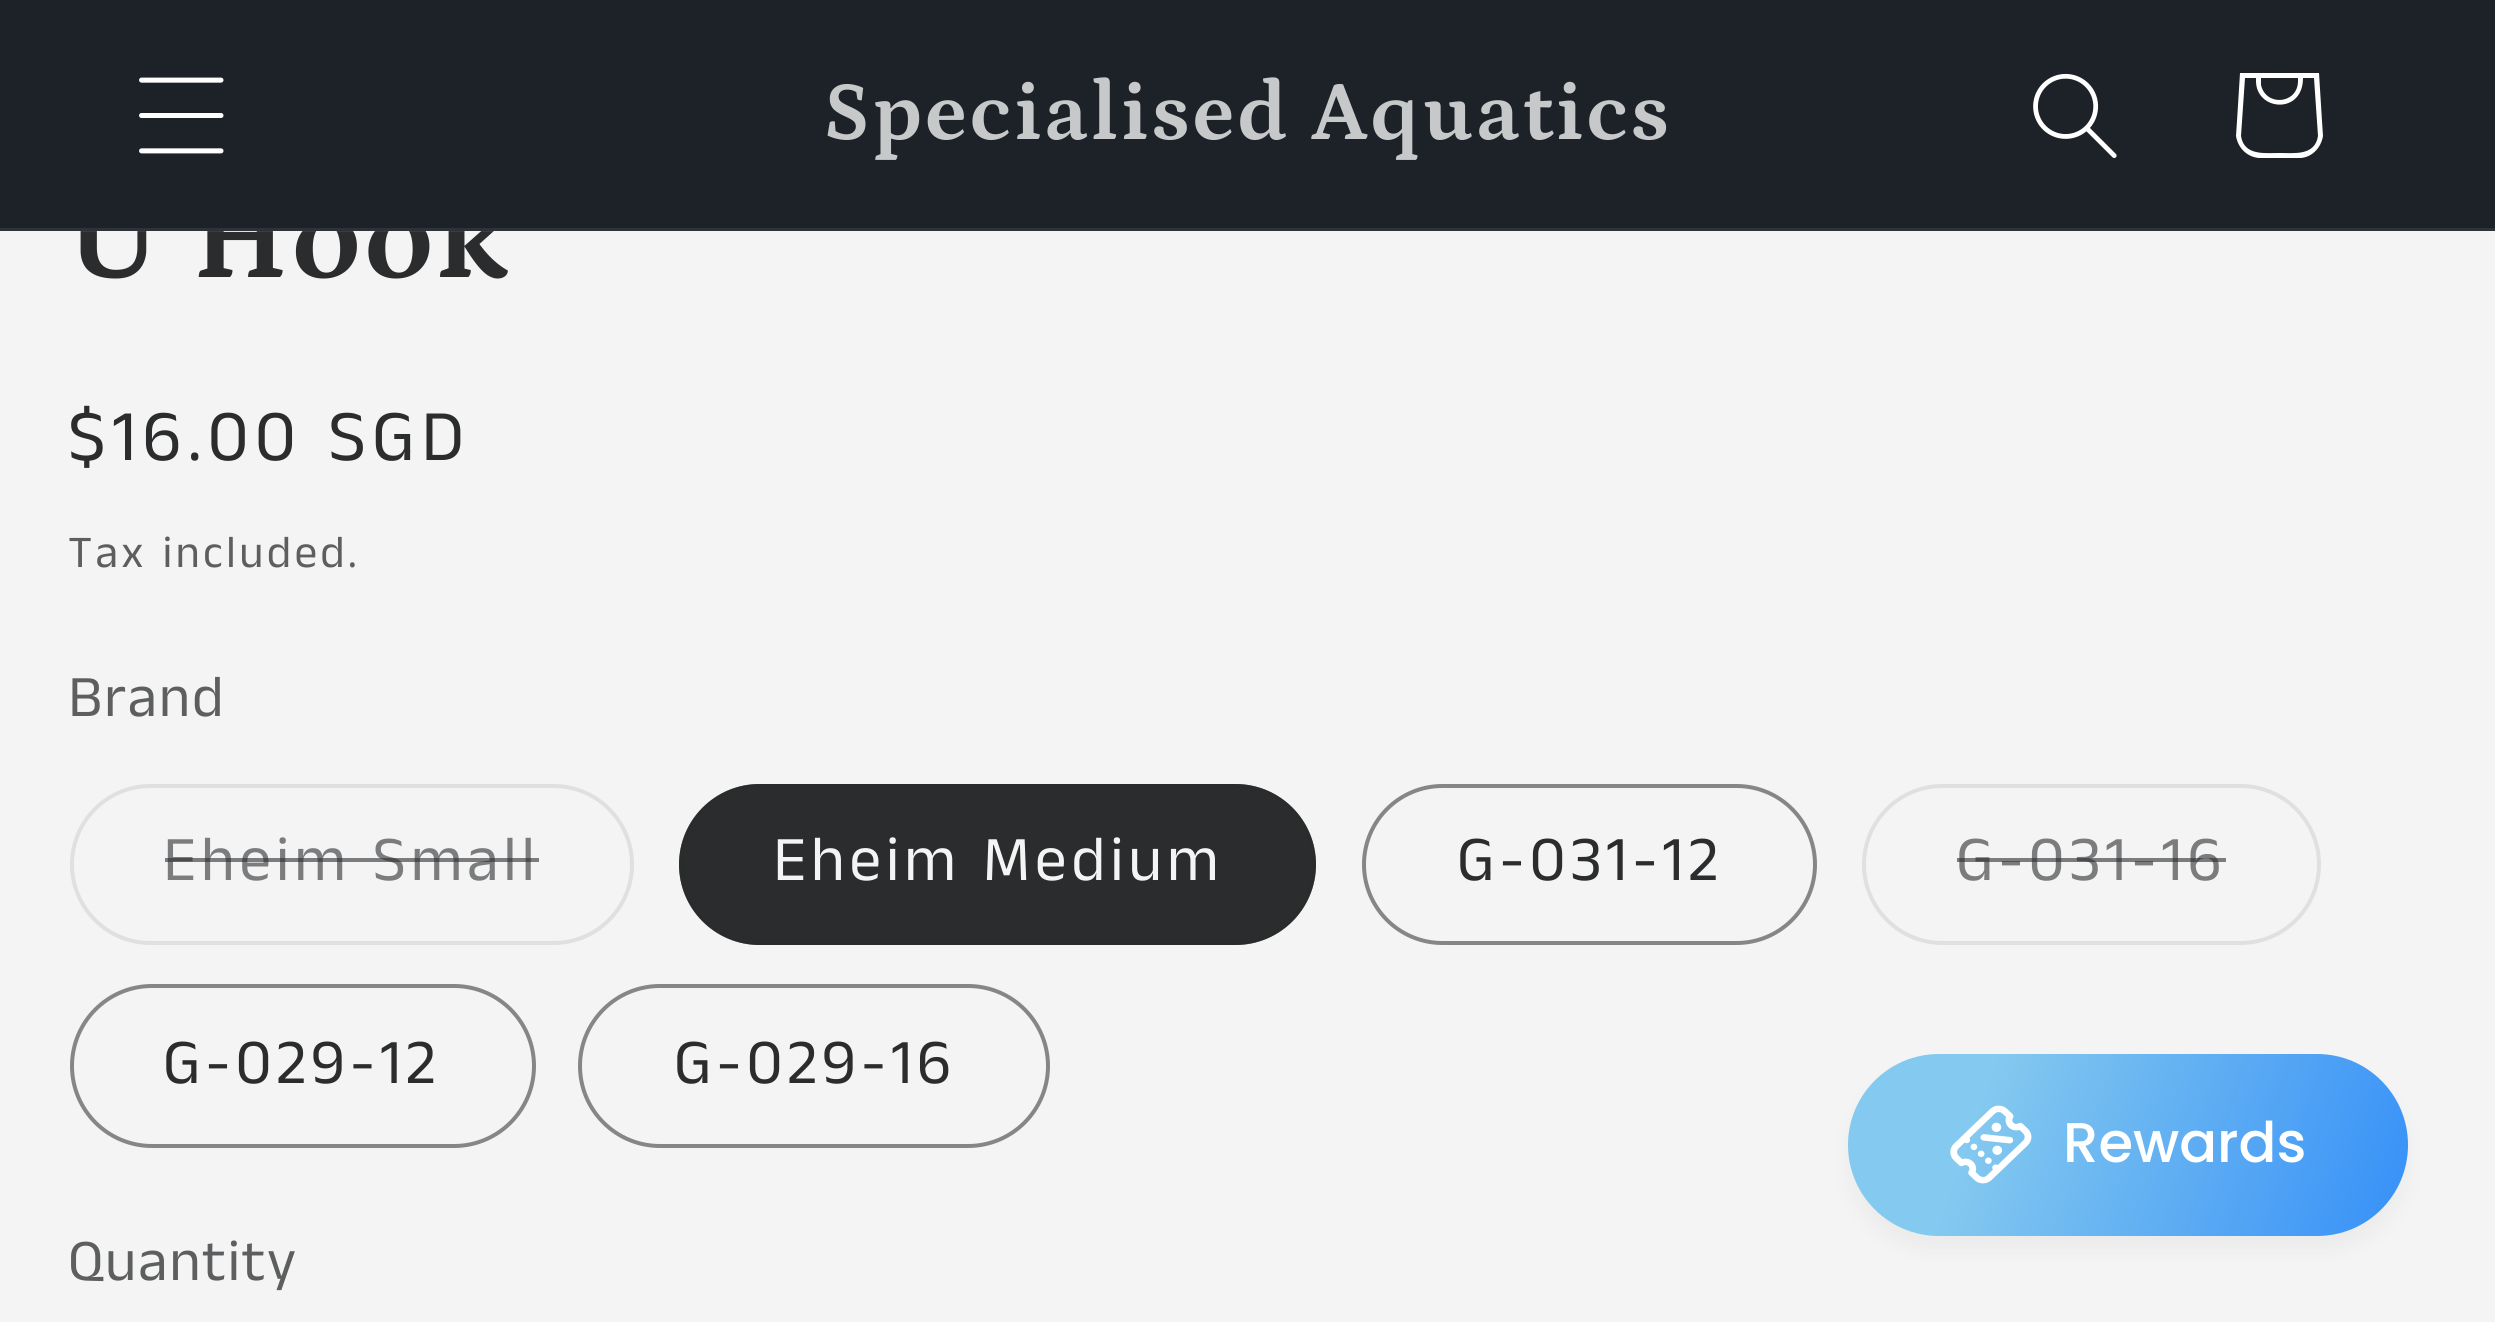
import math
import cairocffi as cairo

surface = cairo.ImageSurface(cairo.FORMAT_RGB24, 2495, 1322)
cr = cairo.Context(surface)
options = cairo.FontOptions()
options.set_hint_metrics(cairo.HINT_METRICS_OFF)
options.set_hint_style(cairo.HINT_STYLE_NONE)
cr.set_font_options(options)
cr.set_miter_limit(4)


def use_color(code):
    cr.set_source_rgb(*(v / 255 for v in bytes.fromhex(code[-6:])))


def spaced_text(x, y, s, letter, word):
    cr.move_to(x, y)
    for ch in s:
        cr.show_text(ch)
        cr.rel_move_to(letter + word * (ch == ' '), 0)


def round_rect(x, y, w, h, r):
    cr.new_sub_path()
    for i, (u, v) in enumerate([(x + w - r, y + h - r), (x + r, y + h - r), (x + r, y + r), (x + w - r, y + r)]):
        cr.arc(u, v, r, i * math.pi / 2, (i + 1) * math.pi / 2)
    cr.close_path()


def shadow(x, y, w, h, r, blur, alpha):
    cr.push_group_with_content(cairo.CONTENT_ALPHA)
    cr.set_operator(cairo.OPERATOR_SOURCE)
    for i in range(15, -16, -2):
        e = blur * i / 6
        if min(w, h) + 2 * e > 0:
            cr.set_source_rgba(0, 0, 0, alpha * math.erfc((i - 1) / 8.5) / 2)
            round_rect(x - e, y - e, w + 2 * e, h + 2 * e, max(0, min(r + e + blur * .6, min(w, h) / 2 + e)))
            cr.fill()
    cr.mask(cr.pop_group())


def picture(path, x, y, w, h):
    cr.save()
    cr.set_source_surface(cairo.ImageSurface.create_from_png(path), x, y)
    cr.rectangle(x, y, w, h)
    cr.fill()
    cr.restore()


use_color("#f4f4f4")
cr.paint()
cr.select_font_face("Petrona", cairo.FONT_SLANT_NORMAL, cairo.FONT_WEIGHT_BOLD)
cr.set_font_size(126)
use_color("#2b2c2d")
spaced_text(68, 277, "U Hook", 2.5, 0)
use_color("#1c2228")
cr.rectangle(0, 0, 2495, 231)
cr.fill()
cr.set_source_rgba(1, 1, 1, 0.08)
cr.rectangle(0, 228, 2495, 4)
cr.fill()
picture("img1.png", 139, 77, 85, 77)
cr.set_font_size(84)
use_color("#c6c8c9")
spaced_text(823, 139, "Specialised Aquatics", 2.5, 0)
picture("img2.png", 2033, 73, 84, 85)
use_color("#ffffff")
cr.set_fill_rule(cairo.FILL_RULE_EVEN_ODD)
cr.new_path()
cr.move_to(2256, 73)
cr.line_to(2240, 73)
cr.line_to(2237, 121)
cr.line_to(2236, 136)
cr.curve_to(2238, 148, 2247, 157, 2259, 158)
cr.line_to(2301, 158)
cr.curve_to(2312, 157, 2321, 148, 2323, 136)
cr.line_to(2322, 121)
cr.line_to(2319, 73)
cr.close_path()
cr.move_to(2256, 78)
cr.line_to(2245, 78)
cr.line_to(2241, 136)
cr.curve_to(2244, 156, 2265, 153, 2280, 153)
cr.curve_to(2294, 153, 2315, 156, 2318, 136)
cr.line_to(2314, 78)
cr.line_to(2303, 78)
cr.curve_to(2303, 115, 2256, 111, 2256, 81)
cr.close_path()
cr.move_to(2298, 78)
cr.line_to(2261, 78)
cr.line_to(2261, 85)
cr.curve_to(2266, 107, 2298, 104, 2298, 81)
cr.close_path()
cr.fill()
cr.select_font_face("Anek Tamil")
cr.set_font_size(72.75)
use_color("#2b2c2d")
spaced_text(68, 460, "$16.00 SGD", 6, 0)
cr.set_font_size(45.5)
use_color("#5d5e5f")
spaced_text(68, 567, "Tax included.", 3.25, 0)
cr.set_font_size(59)
spaced_text(68, 716, "Brand", 1.75, 0)
round_rect(72, 786, 560, 157, 78.5)
use_color("#e0e0e0")
cr.set_line_width(4)
cr.stroke()
cr.set_font_size(63.75)
use_color("#7b7c7d")
spaced_text(163, 880, "Eheim Small", 4.5, 0)
cr.set_source_rgba(0.169, 0.173, 0.176, 0.6)
cr.rectangle(165, 858, 374, 4)
cr.fill()
use_color("#2b2c2d")
round_rect(679, 784, 637, 161, 80.5)
cr.fill()
round_rect(681, 786, 633, 157, 78.5)
cr.set_source_rgba(0.169, 0.173, 0.176, 0.55)
cr.stroke()
use_color("#f4f4f4")
spaced_text(773, 880, "Eheim Medium", 4.5, 0)
round_rect(1364, 786, 451, 157, 78.5)
use_color("#858687")
cr.stroke()
use_color("#2b2c2d")
spaced_text(1457, 880, "G-031-12", 4.5, 0)
round_rect(1864, 786, 455, 157, 78.5)
use_color("#e0e0e0")
cr.stroke()
use_color("#7b7c7d")
spaced_text(1956, 880, "G-031-16", 4.5, 0)
cr.set_source_rgba(0.169, 0.173, 0.176, 0.6)
cr.rectangle(1957, 858, 269, 4)
cr.fill()
round_rect(72, 986, 462, 160, 80)
use_color("#858687")
cr.stroke()
use_color("#2b2c2d")
spaced_text(163, 1083, "G-029-12", 4.5, 0)
round_rect(580, 986, 468, 160, 80)
use_color("#858687")
cr.stroke()
use_color("#2b2c2d")
spaced_text(674, 1083, "G-029-16", 4.5, 0)
cr.set_font_size(59)
use_color("#5d5e5f")
spaced_text(68, 1280, "Quantity", 1.75, 0)
use_color("#444444")
shadow(1855, 1075, 546, 168, 84, 14, 0.08)
gradient = cairo.LinearGradient(1851, 1046, 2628, 1322)
gradient.add_color_stop_rgba(0.17, 0.518, 0.788, 0.937, 1)
gradient.add_color_stop_rgba(1, 0.047, 0.443, 0.988, 1)
cr.set_source(gradient)
round_rect(1848, 1054, 560, 182, 91)
cr.fill()
picture("img3.png", 1950, 1105, 82, 79)
cr.select_font_face("Poppins Medium")
cr.set_font_size(56)
use_color("#ffffff")
cr.move_to(2063, 1162)
cr.show_text("Rewards")
surface.write_to_png("result.png")
